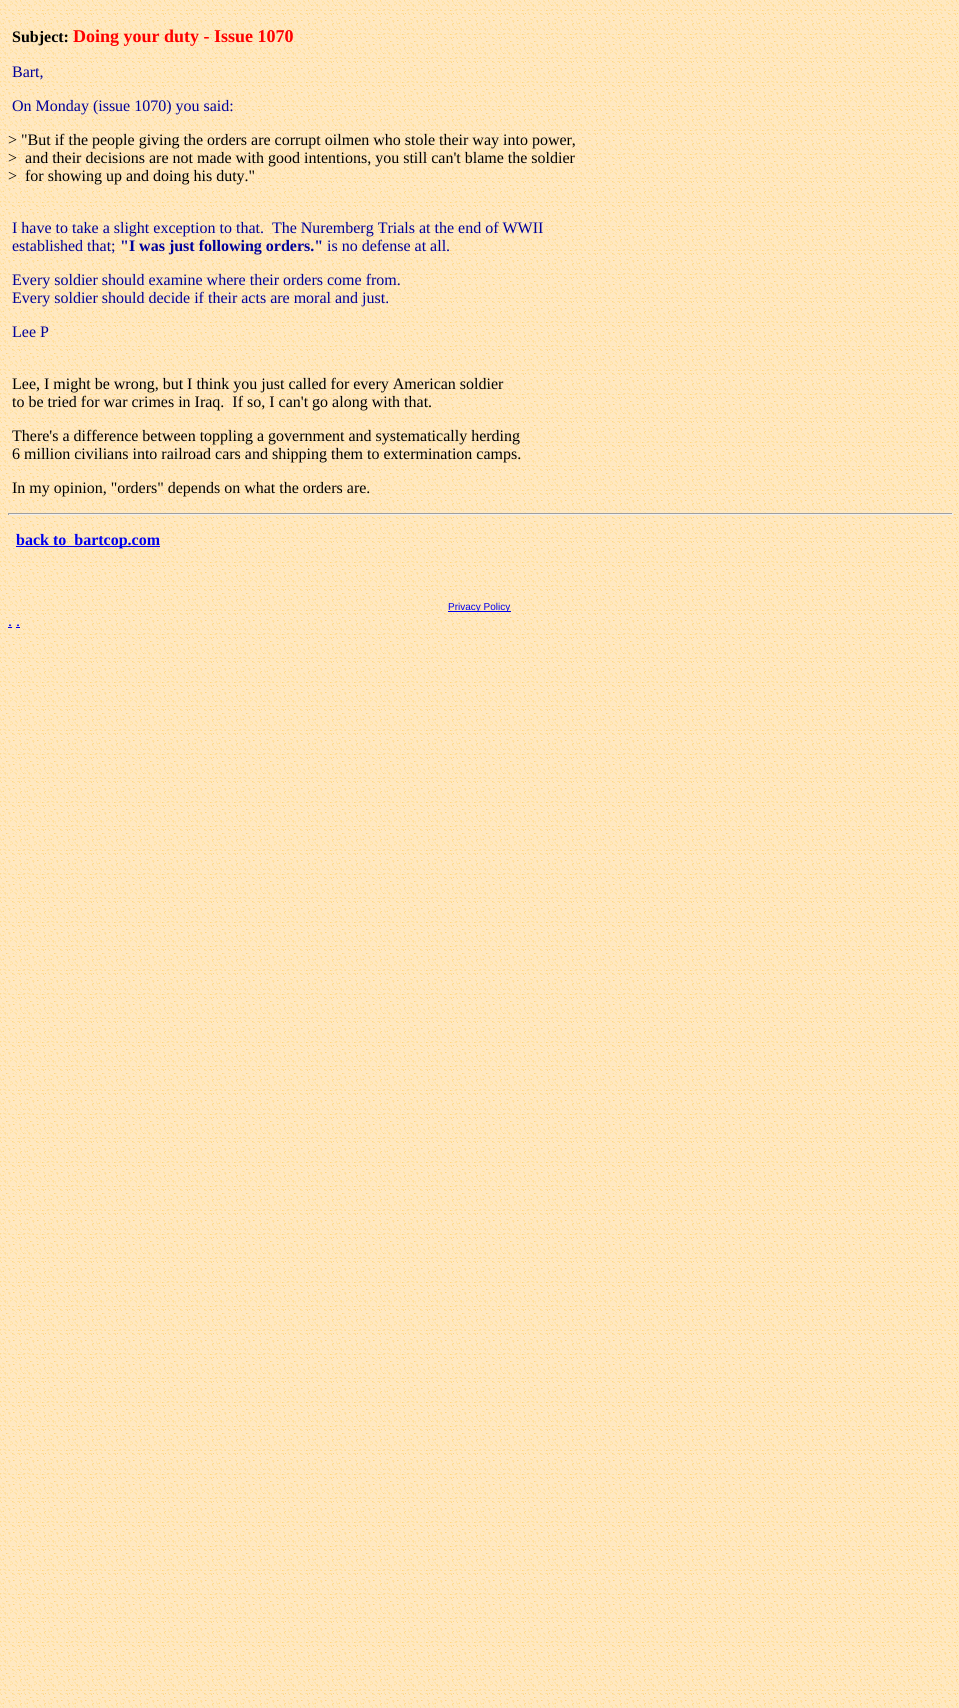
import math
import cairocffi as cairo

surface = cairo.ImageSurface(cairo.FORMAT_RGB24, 959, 1708)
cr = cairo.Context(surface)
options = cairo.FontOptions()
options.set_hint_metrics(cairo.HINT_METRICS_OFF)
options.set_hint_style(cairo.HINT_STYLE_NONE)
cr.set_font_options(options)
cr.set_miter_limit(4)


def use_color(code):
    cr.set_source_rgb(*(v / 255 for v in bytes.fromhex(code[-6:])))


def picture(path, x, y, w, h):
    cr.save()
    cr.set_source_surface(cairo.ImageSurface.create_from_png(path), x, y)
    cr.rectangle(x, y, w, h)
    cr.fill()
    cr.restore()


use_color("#ffffff")
cr.paint()
picture("img1.png", 0, 0, 959, 1708)
cr.select_font_face("Liberation Serif", cairo.FONT_SLANT_NORMAL, cairo.FONT_WEIGHT_BOLD)
cr.set_font_size(16)
use_color("#000000")
cr.move_to(12, 42)
cr.show_text("Subject:")
cr.set_font_size(18)
use_color("#ff0000")
cr.move_to(73, 42)
cr.show_text("Doing your duty - Issue 1070")
cr.select_font_face("Liberation Serif")
cr.set_font_size(16)
use_color("#000099")
cr.move_to(12, 77)
cr.show_text("Bart,")
cr.move_to(12, 111)
cr.show_text("On Monday (issue 1070) you said:")
use_color("#000000")
cr.move_to(8, 145)
cr.show_text("> \"But if the people giving the orders are corrupt oilmen who stole their way into power,")
cr.move_to(8, 163)
cr.show_text(">  and their decisions are not made with good intentions, you still can't blame the soldier")
cr.move_to(8, 181)
cr.show_text(">  for showing up and doing his duty.\"")
use_color("#000099")
cr.move_to(12, 233)
cr.show_text("I have to take a slight exception to that.  The Nuremberg Trials at the end of WWII")
cr.move_to(12, 251)
cr.show_text("established that;")
cr.select_font_face("Liberation Serif", cairo.FONT_SLANT_NORMAL, cairo.FONT_WEIGHT_BOLD)
cr.move_to(120, 251)
cr.show_text("\"I was just following orders.\"")
cr.select_font_face("Liberation Serif")
cr.move_to(327, 251)
cr.show_text("is no defense at all.")
cr.move_to(12, 285)
cr.show_text("Every soldier should examine where their orders come from.")
cr.move_to(12, 303)
cr.show_text("Every soldier should decide if their acts are moral and just.")
cr.move_to(12, 337)
cr.show_text("Lee P")
use_color("#000000")
cr.move_to(12, 389)
cr.show_text("Lee, I might be wrong, but I think you just called for every American soldier")
cr.move_to(12, 407)
cr.show_text("to be tried for war crimes in Iraq.  If so, I can't go along with that.")
cr.move_to(12, 441)
cr.show_text("There's a difference between toppling a government and systematically herding")
cr.move_to(12, 459)
cr.show_text("6 million civilians into railroad cars and shipping them to extermination camps.")
cr.move_to(12, 493)
cr.show_text("In my opinion, \"orders\" depends on what the orders are.")
use_color("#9f9f9f")
cr.rectangle(8, 513, 945, 1)
cr.fill()
use_color("#eeeeee")
cr.rectangle(952, 513, 1, 2)
cr.fill()
cr.rectangle(8, 514, 945, 1)
cr.fill()
use_color("#9f9f9f")
cr.rectangle(8, 513, 1, 2)
cr.fill()
use_color("#0000ee")
cr.rectangle(16, 546, 144, 1)
cr.fill()
cr.select_font_face("Liberation Serif", cairo.FONT_SLANT_NORMAL, cairo.FONT_WEIGHT_BOLD)
cr.move_to(16, 545)
cr.show_text("back to  bartcop.com")
cr.rectangle(448, 611, 63, 1)
cr.fill()
cr.select_font_face("Liberation Sans")
cr.set_font_size(10)
cr.move_to(448, 610)
cr.show_text("Privacy Policy")
cr.select_font_face("Liberation Serif")
cr.set_font_size(16)
cr.move_to(8, 626)
cr.show_text(". .")
cr.rectangle(8, 627, 4, 1)
cr.fill()
cr.rectangle(16, 627, 4, 1)
cr.fill()
surface.write_to_png("result.png")
